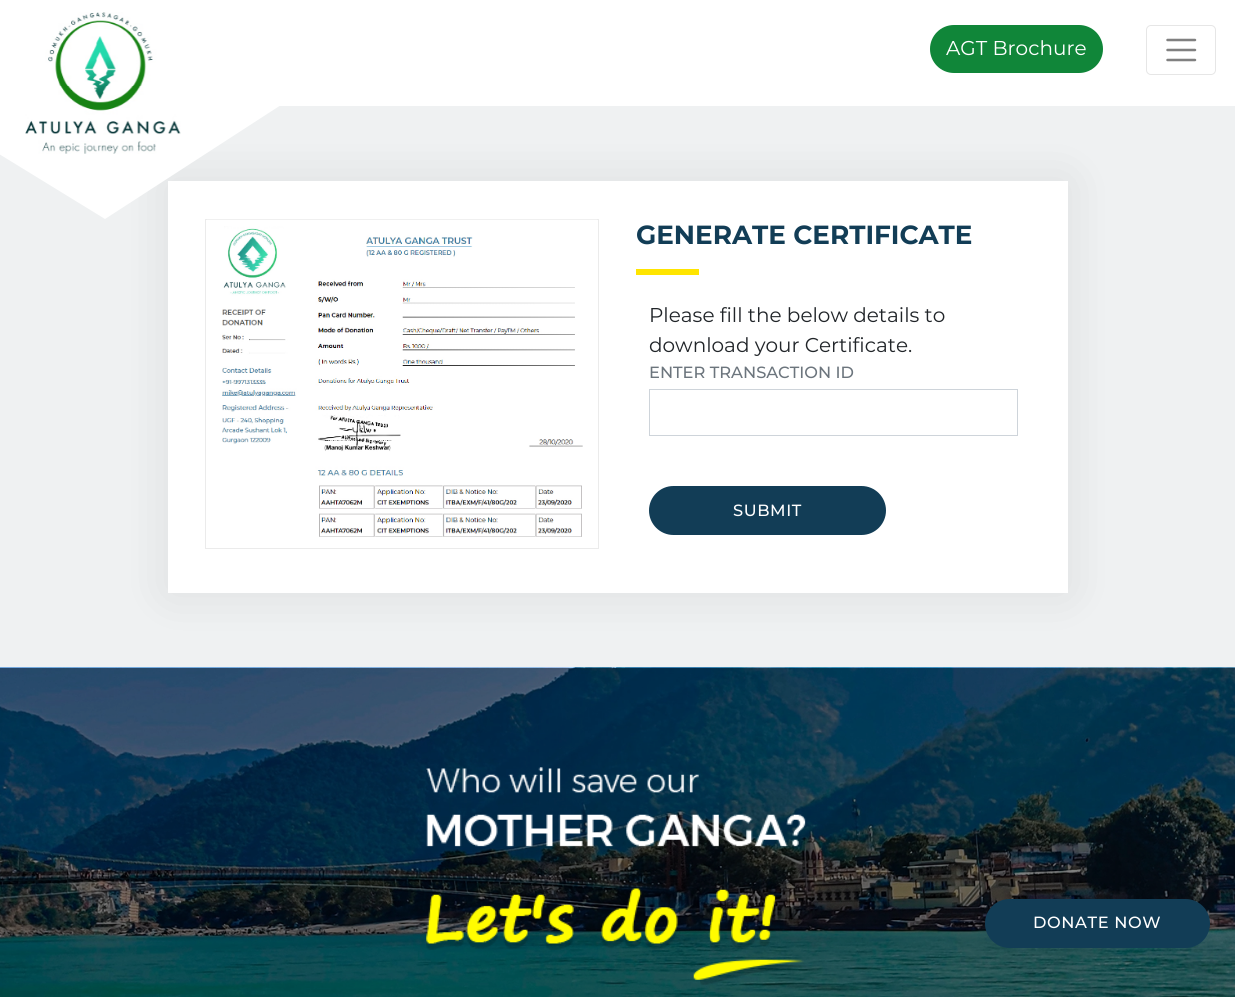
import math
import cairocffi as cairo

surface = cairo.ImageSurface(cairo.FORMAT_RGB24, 1235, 997)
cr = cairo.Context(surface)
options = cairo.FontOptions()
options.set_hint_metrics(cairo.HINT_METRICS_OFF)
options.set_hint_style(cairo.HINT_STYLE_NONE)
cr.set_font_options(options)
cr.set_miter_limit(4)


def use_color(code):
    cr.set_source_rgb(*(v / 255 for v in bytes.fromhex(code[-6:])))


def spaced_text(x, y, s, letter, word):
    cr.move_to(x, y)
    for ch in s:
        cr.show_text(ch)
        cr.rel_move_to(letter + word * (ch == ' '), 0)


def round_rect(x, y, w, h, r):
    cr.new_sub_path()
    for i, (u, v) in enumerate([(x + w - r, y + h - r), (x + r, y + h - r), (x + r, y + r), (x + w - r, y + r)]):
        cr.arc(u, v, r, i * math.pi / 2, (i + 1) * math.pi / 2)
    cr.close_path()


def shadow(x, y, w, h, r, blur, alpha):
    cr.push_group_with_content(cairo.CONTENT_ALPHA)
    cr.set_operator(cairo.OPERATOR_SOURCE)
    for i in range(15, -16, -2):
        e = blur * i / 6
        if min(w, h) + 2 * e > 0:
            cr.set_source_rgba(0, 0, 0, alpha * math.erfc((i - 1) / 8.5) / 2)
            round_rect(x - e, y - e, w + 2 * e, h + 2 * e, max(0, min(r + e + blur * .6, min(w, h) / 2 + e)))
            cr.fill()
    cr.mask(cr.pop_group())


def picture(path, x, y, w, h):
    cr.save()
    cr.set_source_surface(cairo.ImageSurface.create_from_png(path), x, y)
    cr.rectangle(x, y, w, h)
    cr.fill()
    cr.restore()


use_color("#ffffff")
cr.paint()
use_color("#eff1f2")
cr.rectangle(0, 106, 1235, 562)
cr.fill()
use_color("#000000")
shadow(168, 181, 900, 412, 0, 25, 0.08)
use_color("#ffffff")
cr.rectangle(168, 181, 900, 412)
cr.fill()
cr.new_path()
cr.move_to(-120, 81)
cr.line_to(318, 81)
cr.line_to(105, 219)
cr.close_path()
cr.fill()
picture("img1.png", 25, 12, 156, 142)
use_color("#108639")
round_rect(930, 25, 173, 48, 24)
cr.fill()
cr.select_font_face("Montserrat")
cr.set_font_size(20)
use_color("#ffffff")
cr.move_to(946, 55)
cr.show_text("AGT Brochure")
round_rect(1146.5, 25.5, 69, 49, 4.5)
use_color("#e6e6e6")
cr.set_line_width(1)
cr.stroke()
cr.new_path()
cr.move_to(1167.5, 40)
cr.line_to(1195, 40)
cr.move_to(1167.5, 50)
cr.line_to(1195, 50)
cr.move_to(1167.5, 60)
cr.line_to(1195, 60)
use_color("#808080")
cr.set_line_width(2.5)
cr.set_line_cap(cairo.LINE_CAP_ROUND)
cr.stroke()
cr.rectangle(205.5, 219.5, 393, 329)
use_color("#ebebeb")
cr.set_line_width(1)
cr.set_line_cap(cairo.LINE_CAP_BUTT)
cr.stroke()
picture("img2.png", 207, 219, 390, 318)
cr.select_font_face("Montserrat", cairo.FONT_SLANT_NORMAL, cairo.FONT_WEIGHT_BOLD)
cr.set_font_size(26.25)
use_color("#123d56")
cr.move_to(636, 244)
cr.show_text("GENERATE CERTIFICATE")
use_color("#ffe500")
cr.rectangle(636, 269, 63, 6)
cr.fill()
cr.select_font_face("Montserrat")
cr.set_font_size(20)
use_color("#212529")
cr.move_to(649, 322)
cr.show_text("Please fill the below details to")
cr.move_to(649, 352)
cr.show_text("download your Certificate.")
cr.select_font_face("Montserrat Medium")
cr.set_font_size(16.25)
use_color("#6c757d")
cr.move_to(649, 378)
cr.show_text("ENTER TRANSACTION ID")
cr.rectangle(649.5, 389.5, 368, 46)
use_color("#ced4da")
cr.stroke()
use_color("#123d56")
round_rect(649, 486, 237, 49, 24.5)
cr.fill()
use_color("#ffffff")
spaced_text(733, 516, "SUBMIT", 0.6, 0)
picture("img3.png", 0, 667, 1235, 330)
picture("img4.png", 426, 767, 380, 218)
use_color("#123d56")
round_rect(985, 899, 225, 49, 24.5)
cr.fill()
use_color("#ffffff")
spaced_text(1033, 928, "DONATE NOW", 0.6, 0)
surface.write_to_png("result.png")
